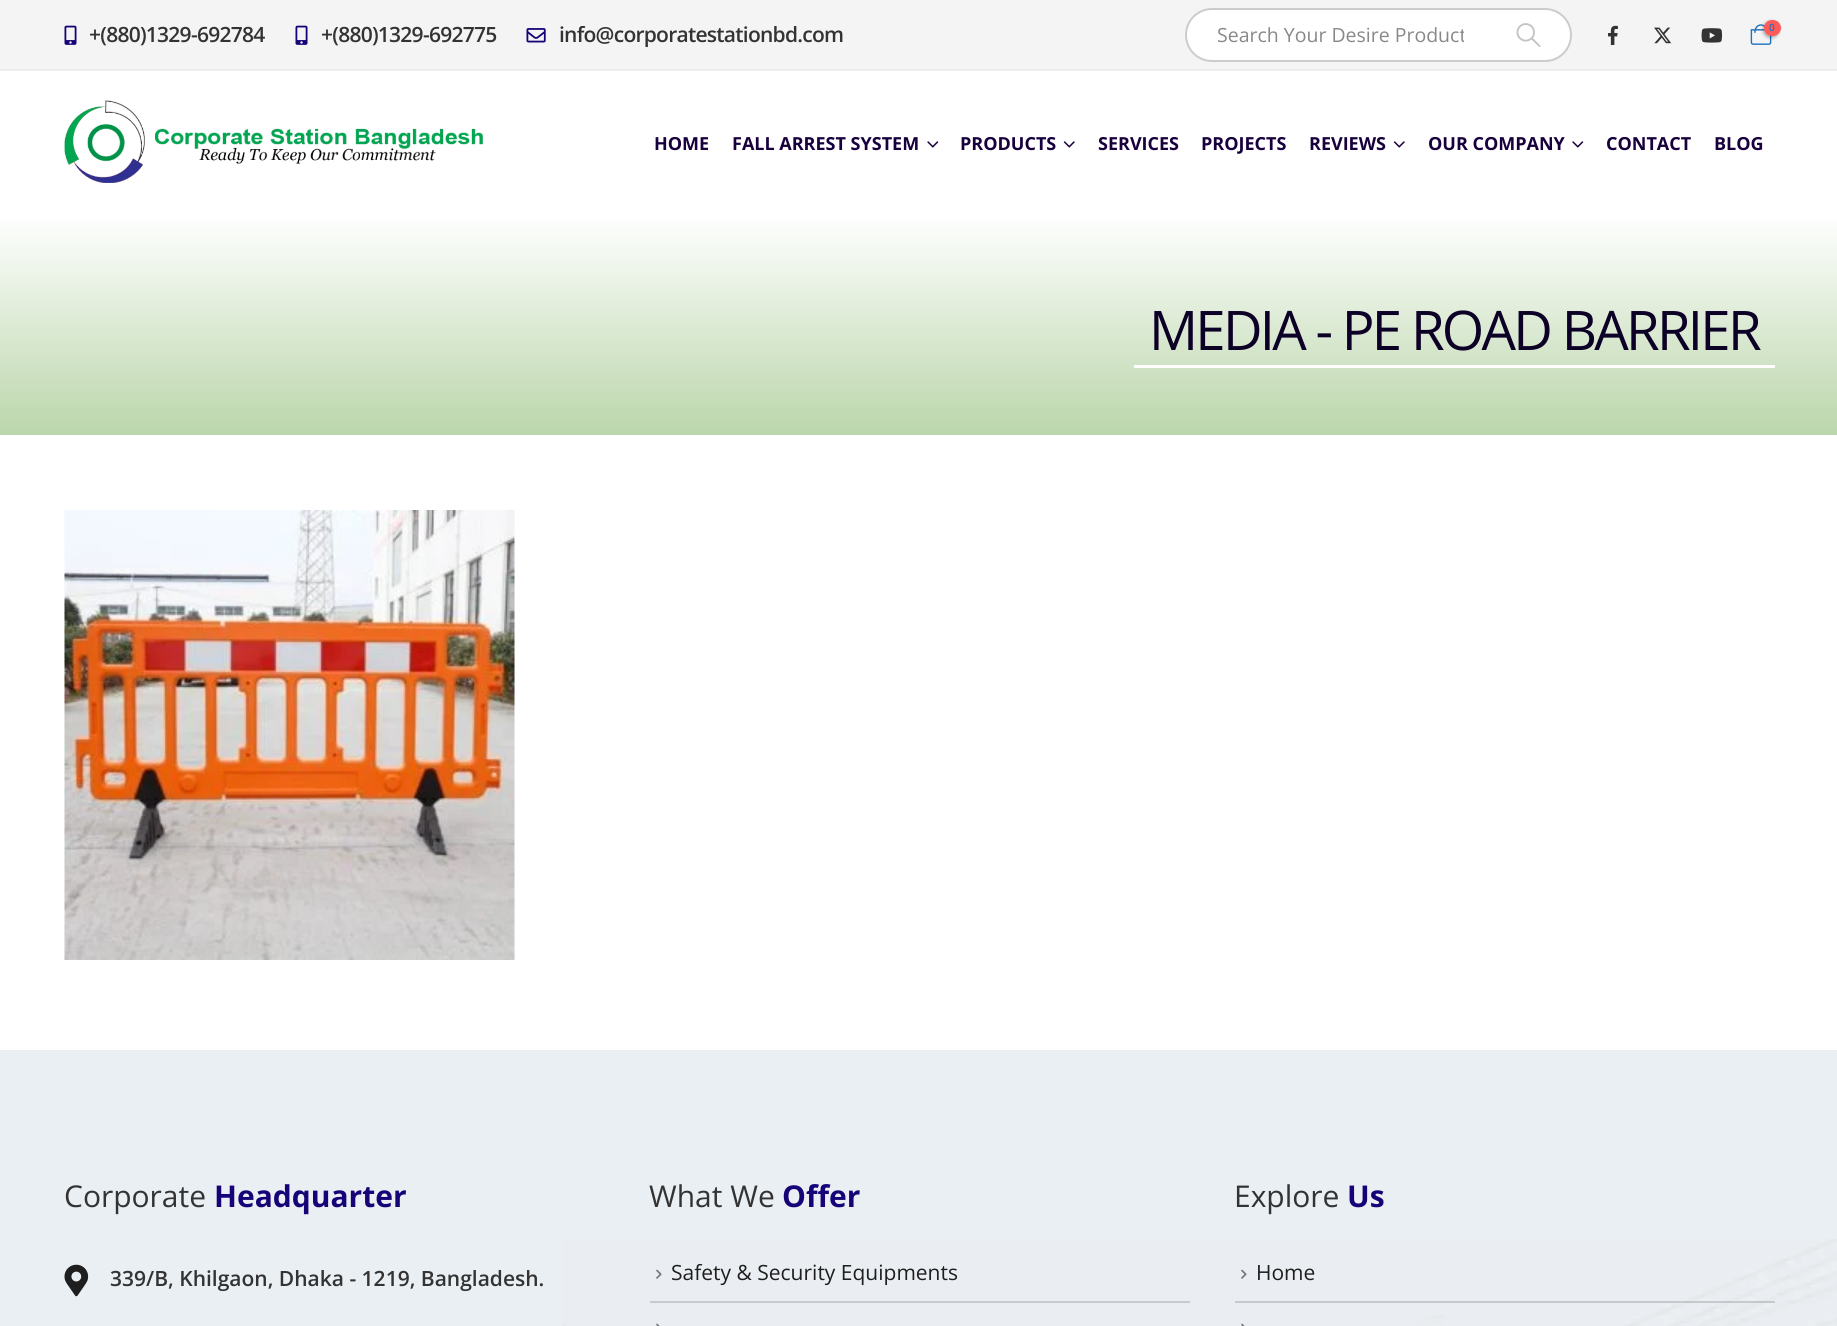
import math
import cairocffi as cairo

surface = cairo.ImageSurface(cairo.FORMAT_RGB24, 1837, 1326)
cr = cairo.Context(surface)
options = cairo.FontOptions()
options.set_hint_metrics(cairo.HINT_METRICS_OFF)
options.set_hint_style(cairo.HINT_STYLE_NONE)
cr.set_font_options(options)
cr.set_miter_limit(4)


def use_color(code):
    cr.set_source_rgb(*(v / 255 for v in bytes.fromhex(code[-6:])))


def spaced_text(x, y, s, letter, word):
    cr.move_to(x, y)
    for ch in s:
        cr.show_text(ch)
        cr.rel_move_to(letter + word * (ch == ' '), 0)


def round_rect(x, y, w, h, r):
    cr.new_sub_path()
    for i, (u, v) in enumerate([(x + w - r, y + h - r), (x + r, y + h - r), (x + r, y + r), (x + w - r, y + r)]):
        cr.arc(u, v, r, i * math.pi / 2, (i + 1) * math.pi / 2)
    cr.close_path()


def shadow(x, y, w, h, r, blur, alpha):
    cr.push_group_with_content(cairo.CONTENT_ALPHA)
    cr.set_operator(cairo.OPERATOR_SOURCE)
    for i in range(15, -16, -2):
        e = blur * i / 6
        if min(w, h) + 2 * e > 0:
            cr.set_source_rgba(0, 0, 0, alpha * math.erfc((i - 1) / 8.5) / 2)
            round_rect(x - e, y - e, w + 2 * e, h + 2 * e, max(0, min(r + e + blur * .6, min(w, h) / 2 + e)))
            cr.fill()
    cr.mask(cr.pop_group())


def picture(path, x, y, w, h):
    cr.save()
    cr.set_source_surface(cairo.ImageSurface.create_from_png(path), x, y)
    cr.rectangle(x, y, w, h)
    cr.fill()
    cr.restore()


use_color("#ffffff")
cr.paint()
use_color("#f4f4f4")
cr.rectangle(0, 0, 1837, 69)
cr.fill()
use_color("#ededed")
cr.rectangle(0, 69, 1837, 2)
cr.fill()
picture("img1.png", 64, 25, 13, 20)
cr.select_font_face("Open Sans SemiBold")
cr.set_font_size(21)
use_color("#333333")
spaced_text(89, 42, "+(880)1329-692784", -0.75, 0)
picture("img1.png", 295, 25, 13, 20)
spaced_text(321, 42, "+(880)1329-692775", -0.75, 0)
picture("img2.png", 526, 28, 20, 15)
spaced_text(559, 42, "info@corporatestationbd.com", -0.75, 0)
use_color("#ffffff")
round_rect(1186, 9, 385, 52, 26)
cr.fill_preserve()
use_color("#cccccc")
cr.stroke()
cr.save()
cr.rectangle(1217, 21, 247, 27)
cr.clip()
cr.select_font_face("Open Sans")
cr.set_font_size(19.5)
use_color("#888888")
cr.move_to(1217, 42)
cr.show_text("Search Your Desire Product")
cr.restore()
picture("img3.png", 1516, 23, 25, 24)
picture("img4.png", 1608, 25, 10, 20)
picture("img5.png", 1654, 27, 18, 17)
picture("img6.png", 1701, 28, 22, 15)
picture("img7.png", 1750, 24, 22, 21)
use_color("#000000")
shadow(1763, 21, 16, 17, 8, 1.5, 0.3)
use_color("#ff5b5b")
round_rect(1764, 20, 17, 16, 8)
cr.fill()
cr.set_font_size(10)
use_color("#1e73be")
cr.move_to(1769, 31)
cr.show_text("0")
picture("img8.png", 64, 100, 419, 83)
cr.select_font_face("Open Sans", cairo.FONT_SLANT_NORMAL, cairo.FONT_WEIGHT_BOLD)
cr.set_font_size(18)
use_color("#18003d")
cr.move_to(654, 150)
cr.show_text("HOME")
cr.move_to(732, 150)
cr.show_text("FALL ARREST SYSTEM")
picture("img9.png", 927, 141, 12, 7)
cr.move_to(960, 150)
cr.show_text("PRODUCTS")
picture("img10.png", 1063, 141, 12, 7)
cr.move_to(1098, 150)
cr.show_text("SERVICES")
cr.move_to(1201, 150)
cr.show_text("PROJECTS")
cr.move_to(1309, 150)
cr.show_text("REVIEWS")
picture("img10.png", 1393, 141, 12, 7)
cr.move_to(1428, 150)
cr.show_text("OUR COMPANY")
picture("img9.png", 1572, 141, 12, 7)
cr.move_to(1606, 150)
cr.show_text("CONTACT")
cr.move_to(1714, 150)
cr.show_text("BLOG")
gradient = cairo.LinearGradient(919, 213, 919, 435)
gradient.add_color_stop_rgba(0, 1, 1, 1, 1)
gradient.add_color_stop_rgba(1, 0.733, 0.839, 0.671, 1)
cr.set_source(gradient)
cr.rectangle(0, 220, 1837, 215)
cr.fill()
use_color("#ffffff")
cr.rectangle(1134, 365, 641, 3)
cr.fill()
cr.select_font_face("Open Sans")
cr.set_font_size(54.6)
use_color("#0c0026")
spaced_text(1149, 350, "MEDIA - PE ROAD BARRIER", -2.75, 0)
picture("img11.png", 64, 510, 451, 450)
use_color("#eaeff3")
cr.rectangle(0, 1050, 1837, 276)
cr.fill()
picture("img12.png", 562, 1239, 1275, 87)
cr.set_font_size(30)
use_color("#333333")
cr.move_to(64, 1207)
cr.show_text("Corporate")
cr.select_font_face("Open Sans", cairo.FONT_SLANT_NORMAL, cairo.FONT_WEIGHT_BOLD)
use_color("#160377")
cr.move_to(214, 1207)
cr.show_text("Headquarter")
picture("img13.png", 64, 1264, 25, 33)
cr.select_font_face("Open Sans SemiBold")
cr.set_font_size(21)
use_color("#333333")
cr.move_to(110, 1286)
cr.show_text("339/B, Khilgaon, Dhaka - 1219, Bangladesh.")
cr.select_font_face("Open Sans")
cr.set_font_size(30)
cr.move_to(649, 1207)
cr.show_text("What We")
cr.select_font_face("Open Sans", cairo.FONT_SLANT_NORMAL, cairo.FONT_WEIGHT_BOLD)
use_color("#160377")
cr.move_to(782, 1207)
cr.show_text("Offer")
picture("img14.png", 656, 1269, 6, 10)
cr.select_font_face("Open Sans")
cr.set_font_size(21)
use_color("#1e1e1e")
cr.move_to(671, 1280)
cr.show_text("Safety & Security Equipments")
use_color("#c8cacd")
cr.rectangle(650, 1301, 540, 2)
cr.fill()
picture("img15.png", 656, 1323, 4, 3)
cr.set_font_size(30)
use_color("#333333")
cr.move_to(1234, 1207)
cr.show_text("Explore")
cr.select_font_face("Open Sans", cairo.FONT_SLANT_NORMAL, cairo.FONT_WEIGHT_BOLD)
use_color("#160377")
cr.move_to(1347, 1207)
cr.show_text("Us")
picture("img14.png", 1241, 1269, 6, 10)
cr.select_font_face("Open Sans")
cr.set_font_size(21)
use_color("#1e1e1e")
cr.move_to(1256, 1280)
cr.show_text("Home")
cr.set_source_rgba(0.467, 0.467, 0.467, 0.3)
cr.rectangle(1235, 1301, 540, 2)
cr.fill()
picture("img15.png", 1241, 1323, 4, 3)
surface.write_to_png("result.png")
